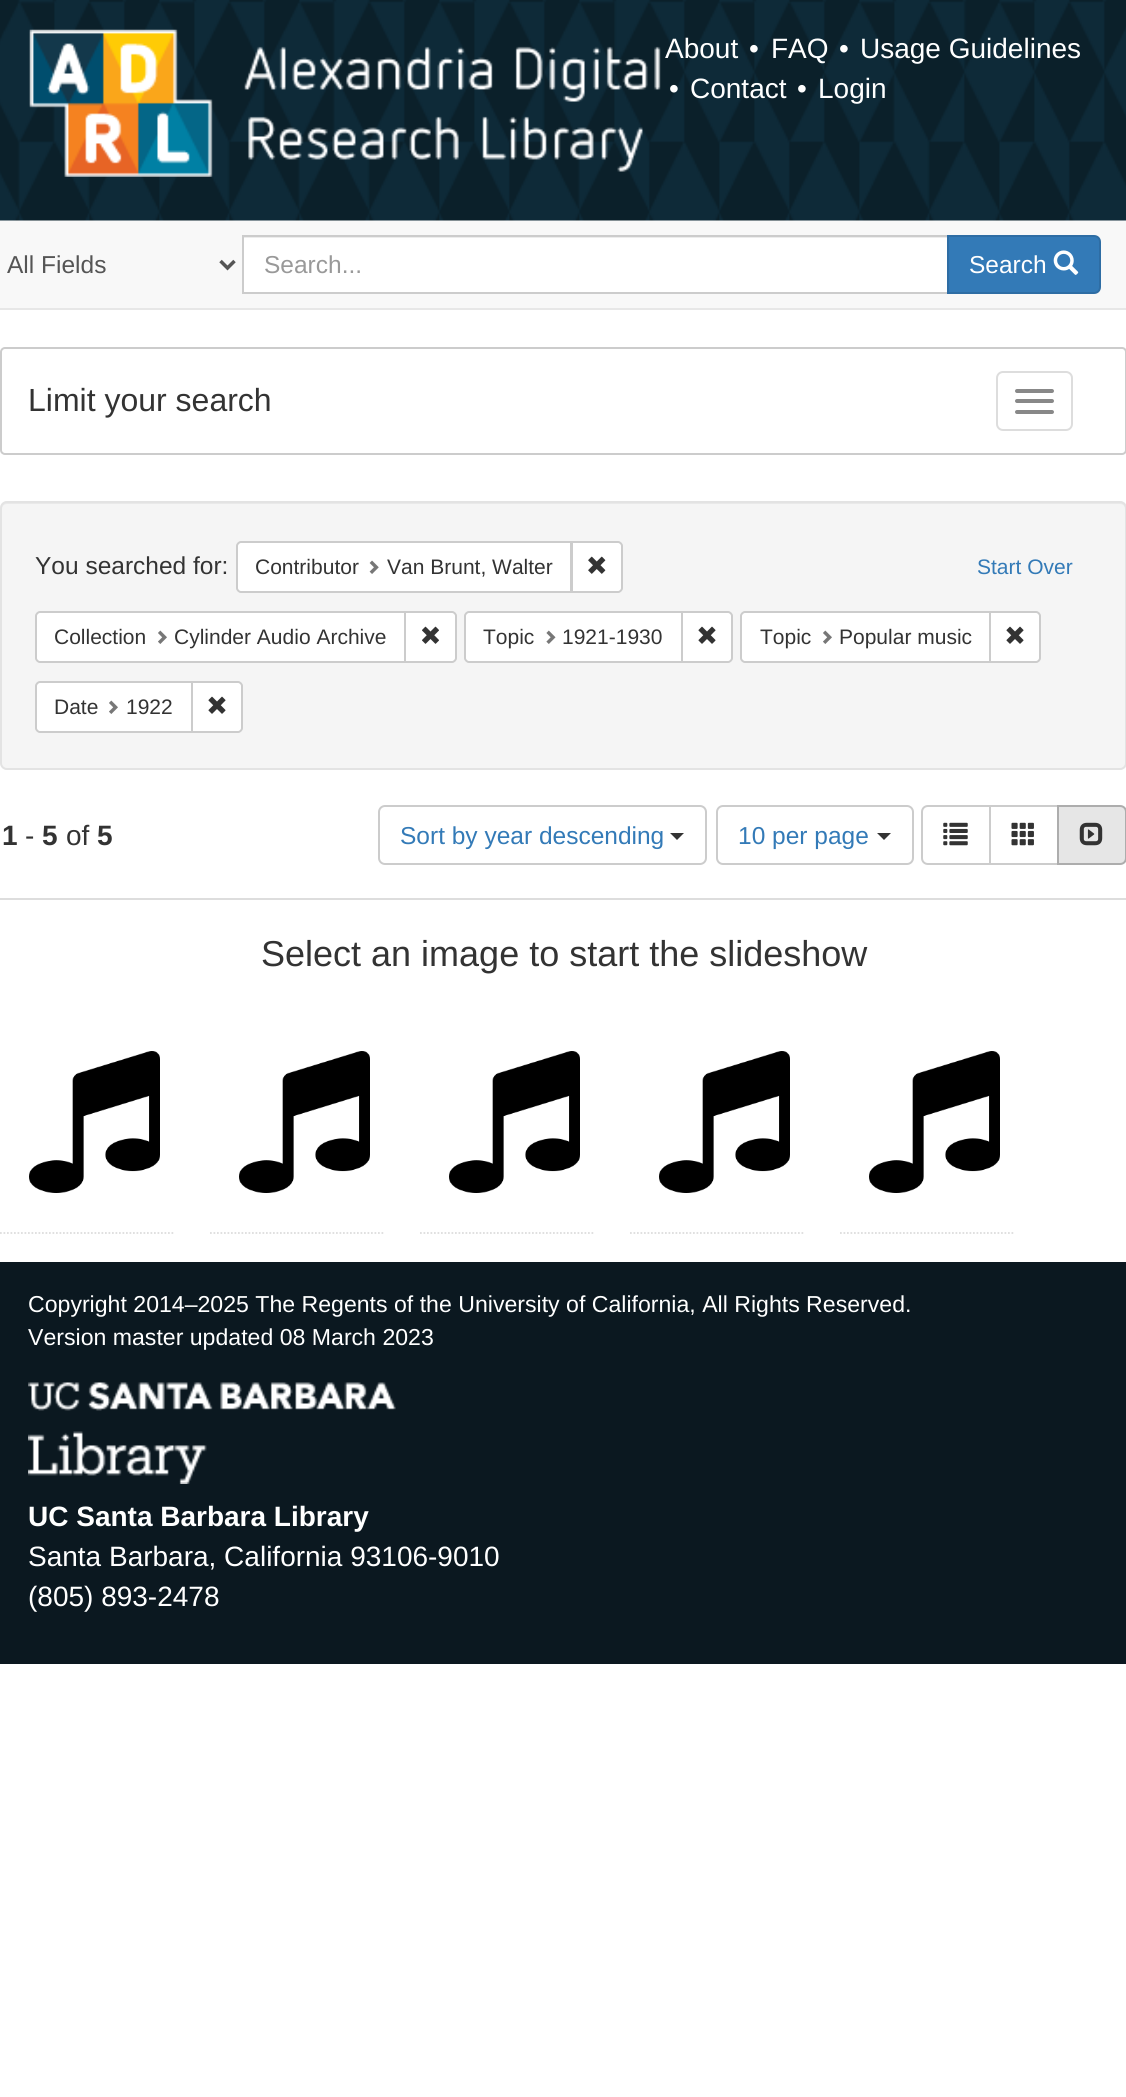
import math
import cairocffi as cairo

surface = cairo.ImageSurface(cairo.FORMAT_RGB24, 1126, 2097)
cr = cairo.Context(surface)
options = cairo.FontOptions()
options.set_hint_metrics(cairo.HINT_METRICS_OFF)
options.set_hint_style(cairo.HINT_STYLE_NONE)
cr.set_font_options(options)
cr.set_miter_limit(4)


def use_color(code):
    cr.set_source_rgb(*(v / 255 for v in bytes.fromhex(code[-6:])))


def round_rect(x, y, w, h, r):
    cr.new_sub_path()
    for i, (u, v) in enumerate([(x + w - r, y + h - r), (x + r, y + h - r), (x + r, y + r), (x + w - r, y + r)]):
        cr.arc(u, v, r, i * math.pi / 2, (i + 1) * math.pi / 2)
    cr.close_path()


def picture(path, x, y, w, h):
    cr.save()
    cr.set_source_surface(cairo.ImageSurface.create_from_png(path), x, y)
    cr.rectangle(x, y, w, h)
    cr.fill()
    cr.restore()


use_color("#ffffff")
cr.paint()
picture("img1.png", 0, 0, 1126, 221)
picture("img2.png", 29, 29, 632, 148)
cr.select_font_face("Liberation Sans")
cr.set_font_size(28)
use_color("#ffffff")
cr.move_to(665, 58)
cr.show_text("About")
cr.move_to(749, 58)
cr.show_text("•")
cr.move_to(771, 58)
cr.show_text("FAQ")
cr.move_to(839, 58)
cr.show_text("•")
cr.move_to(860, 58)
cr.show_text("Usage Guidelines")
cr.move_to(669, 98)
cr.show_text("•")
cr.move_to(690, 98)
cr.show_text("Contact")
cr.move_to(797, 98)
cr.show_text("•")
cr.move_to(818, 98)
cr.show_text("Login")
use_color("#f8f8f8")
cr.rectangle(0, 221, 1126, 87)
cr.fill()
use_color("#e7e7e7")
cr.rectangle(0, 308, 1126, 2)
cr.fill()
cr.new_path()
cr.move_to(220.5, 261)
cr.line_to(227.5, 268)
cr.line_to(234.5, 261)
use_color("#555555")
cr.set_line_width(3.5)
cr.stroke()
cr.set_font_size(24.5)
cr.move_to(7, 273)
cr.show_text("All Fields")
use_color("#ffffff")
cr.rectangle(244, 238, 703, 54)
cr.fill()
use_color("#ececec")
cr.rectangle(243, 237, 704, 1)
cr.fill()
cr.rectangle(243, 236, 705, 57)
use_color("#cccccc")
cr.set_line_width(2)
cr.stroke()
use_color("#999999")
cr.move_to(264, 273)
cr.show_text("Search...")
use_color("#337ab7")
cr.new_path()
cr.move_to(948, 236)
cr.line_to(1094, 236)
cr.curve_to(1097.5, 236, 1100, 238.5, 1100, 242)
cr.line_to(1100, 287)
cr.curve_to(1100, 290.5, 1097.5, 293, 1094, 293)
cr.line_to(948, 293)
cr.close_path()
cr.fill_preserve()
use_color("#2e6da4")
cr.stroke()
use_color("#ffffff")
cr.move_to(969, 273)
cr.show_text("Search")
picture("img3.png", 1053, 250, 26, 25)
round_rect(1, 348, 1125, 106, 4)
use_color("#cccccc")
cr.stroke()
cr.set_font_size(32)
use_color("#333333")
cr.move_to(28, 411)
cr.show_text("Limit your search")
round_rect(997, 372, 75, 58, 6)
use_color("#dddddd")
cr.stroke()
use_color("#888888")
round_rect(1015, 389, 39, 4, 2)
cr.fill()
round_rect(1015, 399, 39, 4, 2)
cr.fill()
round_rect(1015, 410, 39, 4, 2)
cr.fill()
use_color("#f5f5f5")
round_rect(0, 501, 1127, 269, 7)
cr.fill()
use_color("#e9e9e9")
cr.new_path()
cr.move_to(7, 504)
cr.line_to(1120, 504)
cr.curve_to(1123, 504, 1125, 506, 1125, 509)
cr.line_to(1125, 507)
cr.curve_to(1125, 504, 1123, 502, 1120, 502)
cr.line_to(7, 502)
cr.curve_to(4, 502, 2, 504, 2, 507)
cr.line_to(2, 509)
cr.curve_to(2, 506, 4, 504, 7, 504)
cr.close_path()
cr.fill()
round_rect(1, 502, 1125, 267, 6)
use_color("#e3e3e3")
cr.stroke()
cr.set_font_size(24.5)
use_color("#333333")
cr.move_to(35, 574)
cr.show_text("You searched for:")
use_color("#ffffff")
cr.new_path()
cr.move_to(241, 542)
cr.line_to(571, 542)
cr.line_to(571, 592)
cr.line_to(241, 592)
cr.curve_to(239, 592, 237, 590, 237, 588)
cr.line_to(237, 546)
cr.curve_to(237, 544, 239, 542, 241, 542)
cr.close_path()
cr.fill_preserve()
use_color("#cccccc")
cr.stroke()
cr.set_font_size(21)
use_color("#333333")
cr.move_to(255, 574)
cr.show_text("Contributor")
picture("img4.png", 369, 560, 10, 14)
cr.move_to(387, 574)
cr.show_text("Van Brunt, Walter")
use_color("#ffffff")
cr.new_path()
cr.move_to(572, 542)
cr.line_to(618, 542)
cr.curve_to(620, 542, 622, 544, 622, 546)
cr.line_to(622, 588)
cr.curve_to(622, 590, 620, 592, 618, 592)
cr.line_to(572, 592)
cr.close_path()
cr.fill_preserve()
use_color("#cccccc")
cr.stroke()
picture("img5.png", 588, 556, 18, 18)
use_color("#337ab7")
cr.move_to(977, 574)
cr.show_text("Start Over")
use_color("#ffffff")
cr.new_path()
cr.move_to(40, 612)
cr.line_to(405, 612)
cr.line_to(405, 662)
cr.line_to(40, 662)
cr.curve_to(38, 662, 36, 660, 36, 658)
cr.line_to(36, 616)
cr.curve_to(36, 614, 38, 612, 40, 612)
cr.close_path()
cr.fill_preserve()
use_color("#cccccc")
cr.stroke()
use_color("#333333")
cr.move_to(54, 644)
cr.show_text("Collection")
picture("img6.png", 158, 630, 9, 14)
cr.move_to(174, 644)
cr.show_text("Cylinder Audio Archive")
use_color("#ffffff")
cr.new_path()
cr.move_to(405, 612)
cr.line_to(452, 612)
cr.curve_to(454, 612, 456, 614, 456, 616)
cr.line_to(456, 658)
cr.curve_to(456, 660, 454, 662, 452, 662)
cr.line_to(405, 662)
cr.close_path()
cr.fill_preserve()
use_color("#cccccc")
cr.stroke()
picture("img7.png", 422, 626, 17, 18)
use_color("#ffffff")
cr.new_path()
cr.move_to(469, 612)
cr.line_to(682, 612)
cr.line_to(682, 662)
cr.line_to(469, 662)
cr.curve_to(467, 662, 465, 660, 465, 658)
cr.line_to(465, 616)
cr.curve_to(465, 614, 467, 612, 469, 612)
cr.close_path()
cr.fill_preserve()
use_color("#cccccc")
cr.stroke()
use_color("#333333")
cr.move_to(483, 644)
cr.show_text("Topic")
picture("img8.png", 546, 630, 10, 14)
cr.move_to(562, 644)
cr.show_text("1921-1930")
use_color("#ffffff")
cr.new_path()
cr.move_to(682, 612)
cr.line_to(728, 612)
cr.curve_to(730, 612, 732, 614, 732, 616)
cr.line_to(732, 658)
cr.curve_to(732, 660, 730, 662, 728, 662)
cr.line_to(682, 662)
cr.close_path()
cr.fill_preserve()
use_color("#cccccc")
cr.stroke()
picture("img9.png", 698, 626, 18, 18)
use_color("#ffffff")
cr.new_path()
cr.move_to(745, 612)
cr.line_to(990, 612)
cr.line_to(990, 662)
cr.line_to(745, 662)
cr.curve_to(743, 662, 741, 660, 741, 658)
cr.line_to(741, 616)
cr.curve_to(741, 614, 743, 612, 745, 612)
cr.close_path()
cr.fill_preserve()
use_color("#cccccc")
cr.stroke()
use_color("#333333")
cr.move_to(760, 644)
cr.show_text("Topic")
picture("img6.png", 823, 630, 9, 14)
cr.move_to(839, 644)
cr.show_text("Popular music")
use_color("#ffffff")
cr.new_path()
cr.move_to(990, 612)
cr.line_to(1036, 612)
cr.curve_to(1038, 612, 1040, 614, 1040, 616)
cr.line_to(1040, 658)
cr.curve_to(1040, 660, 1038, 662, 1036, 662)
cr.line_to(990, 662)
cr.close_path()
cr.fill_preserve()
use_color("#cccccc")
cr.stroke()
picture("img9.png", 1006, 626, 18, 18)
use_color("#ffffff")
cr.new_path()
cr.move_to(40, 682)
cr.line_to(192, 682)
cr.line_to(192, 732)
cr.line_to(40, 732)
cr.curve_to(38, 732, 36, 730, 36, 728)
cr.line_to(36, 686)
cr.curve_to(36, 684, 38, 682, 40, 682)
cr.close_path()
cr.fill_preserve()
use_color("#cccccc")
cr.stroke()
use_color("#333333")
cr.move_to(54, 714)
cr.show_text("Date")
picture("img6.png", 109, 700, 9, 14)
cr.move_to(126, 714)
cr.show_text("1922")
use_color("#ffffff")
cr.new_path()
cr.move_to(192, 682)
cr.line_to(238, 682)
cr.curve_to(240, 682, 242, 684, 242, 686)
cr.line_to(242, 728)
cr.curve_to(242, 730, 240, 732, 238, 732)
cr.line_to(192, 732)
cr.close_path()
cr.fill_preserve()
use_color("#cccccc")
cr.stroke()
picture("img9.png", 208, 696, 18, 18)
use_color("#dddddd")
cr.rectangle(0, 898, 1126, 2)
cr.fill()
cr.select_font_face("Liberation Sans", cairo.FONT_SLANT_NORMAL, cairo.FONT_WEIGHT_BOLD)
cr.set_font_size(28)
use_color("#333333")
cr.move_to(2, 845)
cr.show_text("1")
cr.select_font_face("Liberation Sans")
cr.move_to(25, 845)
cr.show_text("-")
cr.select_font_face("Liberation Sans", cairo.FONT_SLANT_NORMAL, cairo.FONT_WEIGHT_BOLD)
cr.move_to(42, 845)
cr.show_text("5")
cr.select_font_face("Liberation Sans")
cr.move_to(66, 845)
cr.show_text("of")
cr.select_font_face("Liberation Sans", cairo.FONT_SLANT_NORMAL, cairo.FONT_WEIGHT_BOLD)
cr.move_to(97, 845)
cr.show_text("5")
round_rect(379, 806, 327, 58, 6)
use_color("#cccccc")
cr.stroke()
cr.select_font_face("Liberation Sans")
cr.set_font_size(24.5)
use_color("#337ab7")
cr.move_to(400, 844)
cr.show_text("Sort by year descending")
use_color("#333333")
cr.new_path()
cr.move_to(670, 833)
cr.line_to(684, 833)
cr.line_to(677, 840)
cr.close_path()
cr.fill()
round_rect(717, 806, 196, 58, 6)
use_color("#cccccc")
cr.stroke()
use_color("#337ab7")
cr.move_to(738, 844)
cr.show_text("10 per page")
use_color("#333333")
cr.new_path()
cr.move_to(877, 833)
cr.line_to(891, 833)
cr.line_to(884, 840)
cr.close_path()
cr.fill()
cr.new_path()
cr.move_to(928, 806)
cr.line_to(990, 806)
cr.line_to(990, 864)
cr.line_to(928, 864)
cr.curve_to(924.5, 864, 922, 861.5, 922, 858)
cr.line_to(922, 812)
cr.curve_to(922, 808.5, 924.5, 806, 928, 806)
cr.close_path()
use_color("#cccccc")
cr.stroke()
picture("img10.png", 943, 822, 25, 24)
cr.rectangle(990, 806, 68, 58)
cr.stroke()
picture("img11.png", 1011, 822, 23, 24)
use_color("#e6e6e6")
cr.new_path()
cr.move_to(1058, 806)
cr.line_to(1120, 806)
cr.curve_to(1123.5, 806, 1126, 808.5, 1126, 812)
cr.line_to(1126, 858)
cr.curve_to(1126, 861.5, 1123.5, 864, 1120, 864)
cr.line_to(1058, 864)
cr.close_path()
cr.fill_preserve()
use_color("#adadad")
cr.stroke()
picture("img12.png", 1079, 822, 24, 24)
cr.set_font_size(36)
use_color("#333333")
cr.move_to(261, 966)
cr.show_text("Select an image to start the slideshow")
cr.new_path()
cr.move_to(0, 1233)
cr.line_to(175, 1233)
use_color("#dddddd")
cr.set_line_width(1.8)
cr.set_dash([1.75, 1.75])
cr.stroke()
picture("img13.png", 29, 1051, 131, 142)
cr.new_path()
cr.move_to(210, 1233)
cr.line_to(385, 1233)
cr.stroke()
picture("img13.png", 239, 1051, 131, 142)
cr.new_path()
cr.move_to(420, 1233)
cr.line_to(595, 1233)
cr.stroke()
picture("img13.png", 449, 1051, 131, 142)
cr.new_path()
cr.move_to(630, 1233)
cr.line_to(805, 1233)
cr.stroke()
picture("img14.png", 659, 1051, 131, 142)
cr.new_path()
cr.move_to(840, 1233)
cr.line_to(1015, 1233)
cr.stroke()
picture("img14.png", 869, 1051, 131, 142)
use_color("#0b1820")
cr.rectangle(0, 1262, 1126, 402)
cr.fill()
cr.set_font_size(23.1)
use_color("#ffffff")
cr.move_to(28, 1312)
cr.show_text("Copyright 2014–2025 The Regents of the University of California, All Rights Reserved.")
cr.move_to(28, 1345)
cr.show_text("Version master updated 08 March 2023")
picture("img15.png", 28, 1382, 368, 102)
cr.select_font_face("Liberation Sans", cairo.FONT_SLANT_NORMAL, cairo.FONT_WEIGHT_BOLD)
cr.set_font_size(28)
cr.move_to(28, 1526)
cr.show_text("UC Santa Barbara Library")
cr.select_font_face("Liberation Sans")
cr.move_to(28, 1566)
cr.show_text("Santa Barbara, California 93106-9010")
cr.move_to(28, 1606)
cr.show_text("(805) 893-2478")
surface.write_to_png("result.png")
